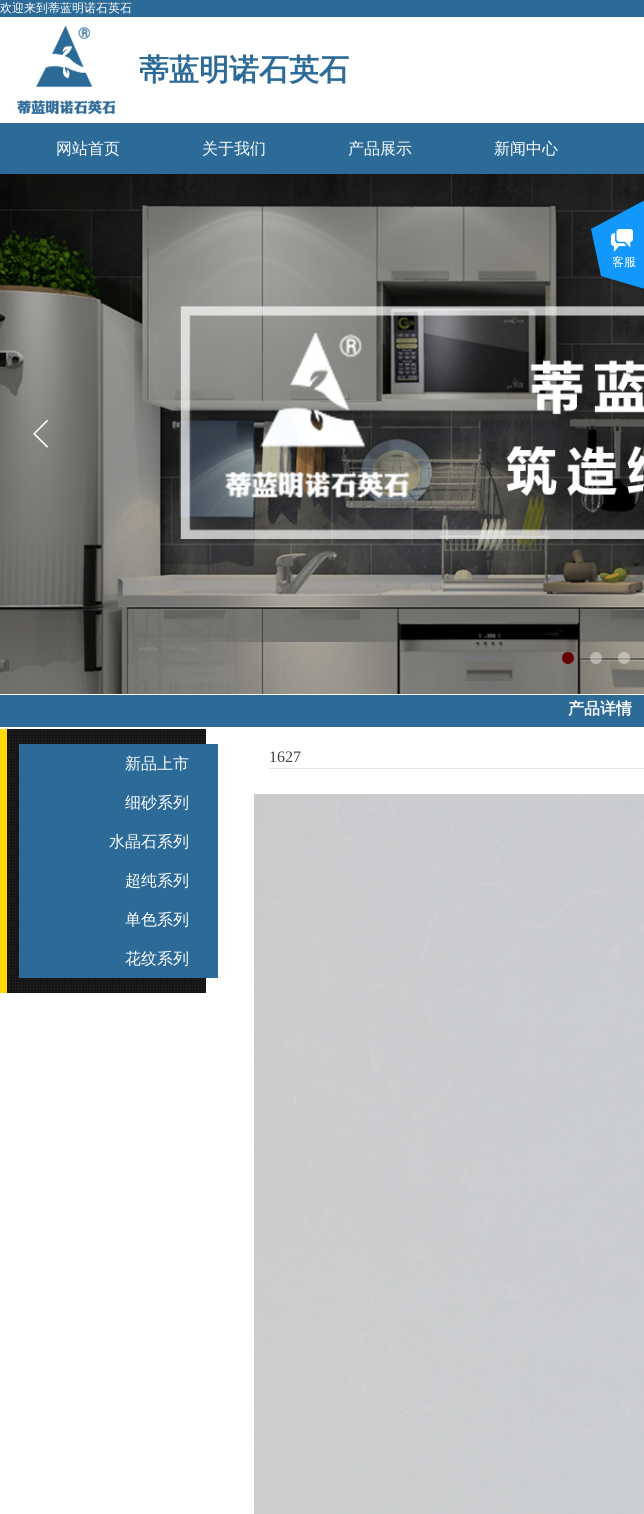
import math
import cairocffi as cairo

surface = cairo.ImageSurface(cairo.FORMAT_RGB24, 644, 1514)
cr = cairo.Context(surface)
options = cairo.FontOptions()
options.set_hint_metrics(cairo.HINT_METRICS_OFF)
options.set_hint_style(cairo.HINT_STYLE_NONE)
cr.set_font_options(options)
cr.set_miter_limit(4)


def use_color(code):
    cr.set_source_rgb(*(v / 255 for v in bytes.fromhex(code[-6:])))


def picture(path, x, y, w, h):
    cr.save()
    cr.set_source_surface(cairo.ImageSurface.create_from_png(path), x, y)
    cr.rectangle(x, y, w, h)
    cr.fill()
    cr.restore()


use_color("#ffffff")
cr.paint()
use_color("#2c6a98")
cr.rectangle(0, 0, 644, 17)
cr.fill()
cr.select_font_face("WenQuanYi Zen Hei Medium")
cr.set_font_size(12)
use_color("#ffffff")
cr.move_to(0, 12)
cr.show_text("欢迎来到蒂蓝明诺石英石")
picture("img1.png", 17, 26, 98, 88)
cr.select_font_face("WenQuanYi Zen Hei", cairo.FONT_SLANT_NORMAL, cairo.FONT_WEIGHT_BOLD)
cr.set_font_size(30)
use_color("#2c6a98")
cr.move_to(139, 80)
cr.show_text("蒂蓝明诺石英石")
cr.rectangle(0, 123, 644, 51)
cr.fill()
cr.select_font_face("WenQuanYi Zen Hei Medium")
cr.set_font_size(16)
use_color("#ffffff")
cr.move_to(56, 154)
cr.show_text("网站首页")
cr.move_to(202, 154)
cr.show_text("关于我们")
cr.move_to(348, 154)
cr.show_text("产品展示")
cr.move_to(494, 154)
cr.show_text("新闻中心")
picture("img2.png", 0, 174, 644, 520)
picture("img3.png", 33, 419, 16, 29)
use_color("#660000")
cr.arc(568, 658, 6, 0, 2 * math.pi)
cr.fill()
cr.set_source_rgba(1, 1, 1, 0.4)
cr.arc(596, 658, 6, 0, 2 * math.pi)
cr.fill()
cr.arc(624, 658, 6, 0, 2 * math.pi)
cr.fill()
use_color("#2c6a98")
cr.rectangle(0, 695, 644, 32)
cr.fill()
cr.select_font_face("WenQuanYi Zen Hei", cairo.FONT_SLANT_NORMAL, cairo.FONT_WEIGHT_BOLD)
use_color("#ffffff")
cr.move_to(568, 714)
cr.show_text("产品详情")
picture("img4.png", 7, 729, 199, 264)
use_color("#ffd704")
cr.rectangle(0, 729, 7, 264)
cr.fill()
use_color("#2c6a98")
cr.rectangle(19, 744, 199, 234)
cr.fill()
cr.select_font_face("WenQuanYi Zen Hei Medium")
use_color("#ffffff")
cr.move_to(125, 769)
cr.show_text("新品上市")
cr.move_to(125, 808)
cr.show_text("细砂系列")
cr.move_to(109, 847)
cr.show_text("水晶石系列")
cr.move_to(125, 886)
cr.show_text("超纯系列")
cr.move_to(125, 925)
cr.show_text("单色系列")
cr.move_to(125, 964)
cr.show_text("花纹系列")
use_color("#e2e2e2")
cr.rectangle(269, 768, 375, 1)
cr.fill()
cr.select_font_face("Liberation Serif")
use_color("#454545")
cr.move_to(269, 762)
cr.show_text("1627")
picture("img5.png", 254, 794, 390, 720)
picture("img6.png", 591, 200, 53, 89)
cr.select_font_face("WenQuanYi Zen Hei Medium")
cr.set_font_size(12)
use_color("#ffffff")
cr.move_to(612, 266)
cr.show_text("客服")
surface.write_to_png("result.png")
